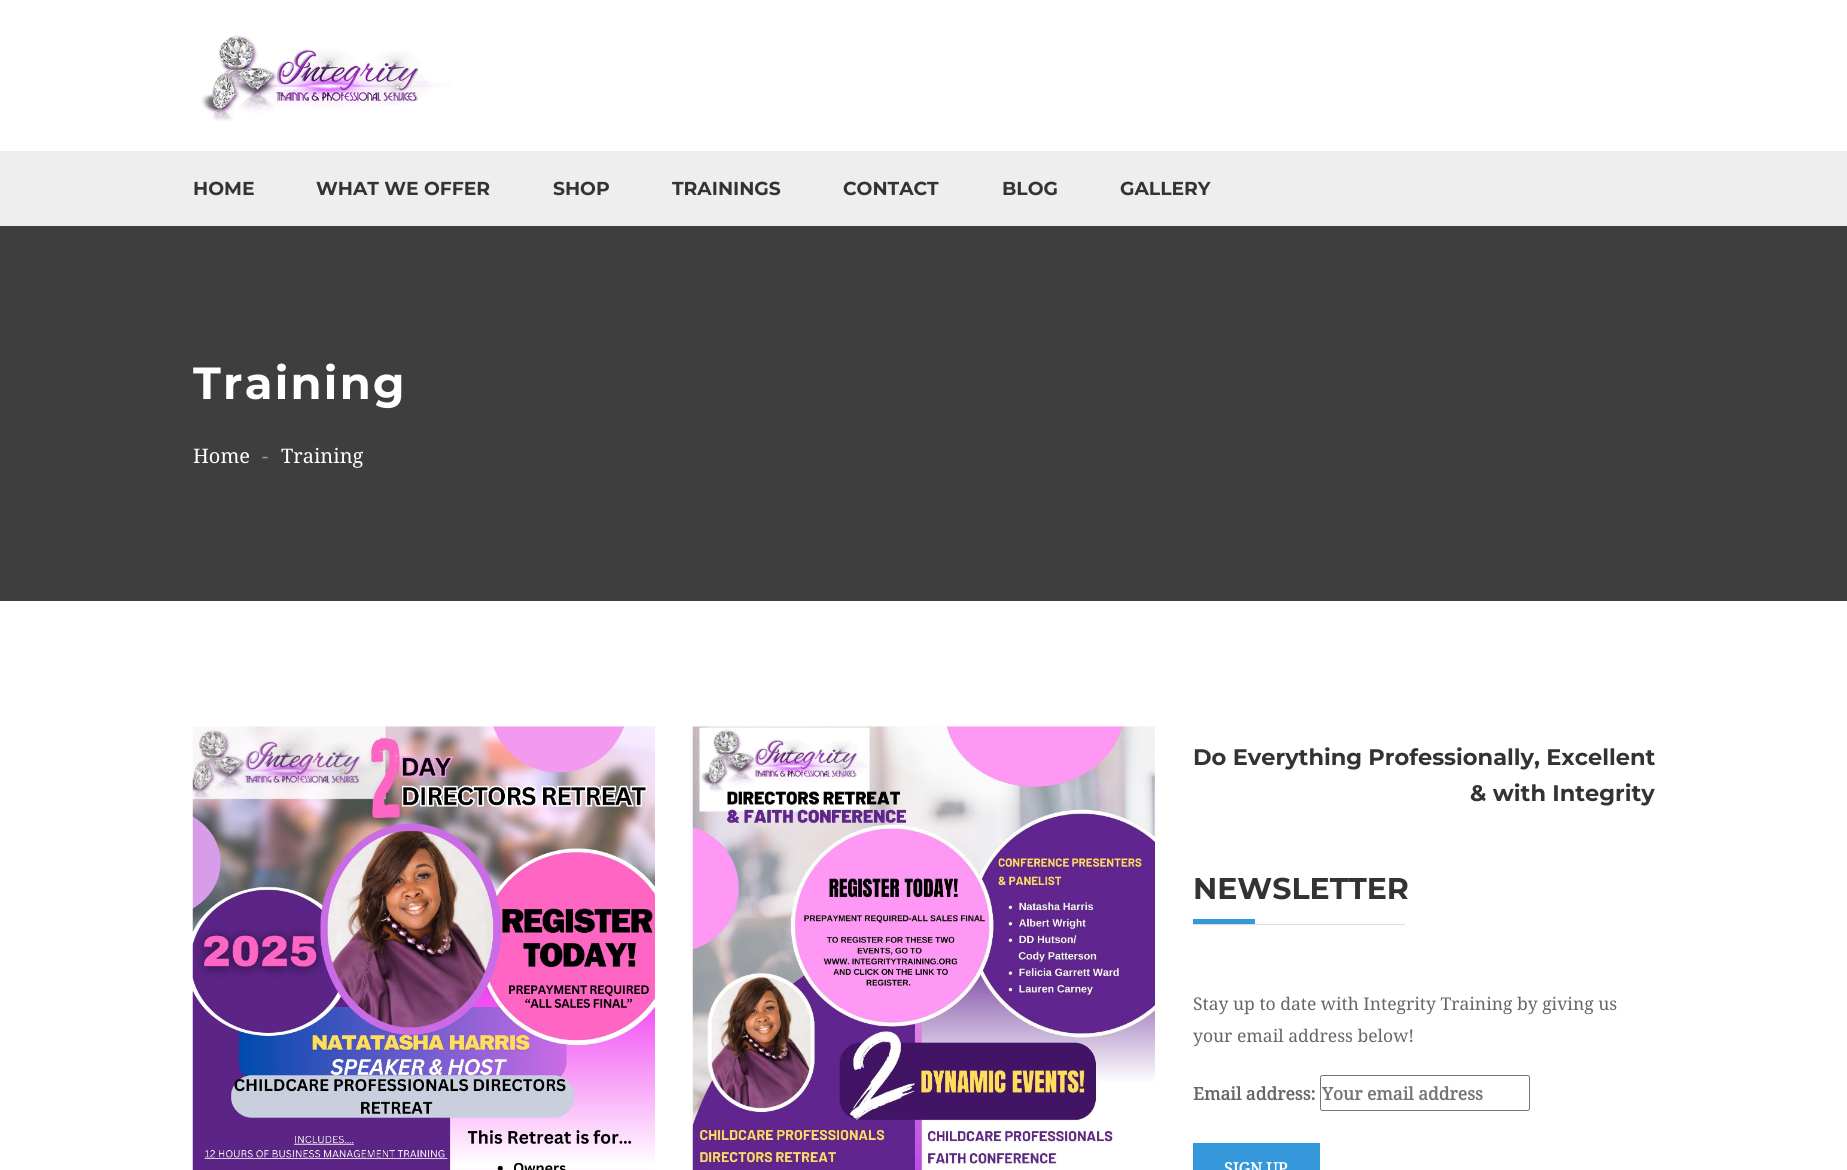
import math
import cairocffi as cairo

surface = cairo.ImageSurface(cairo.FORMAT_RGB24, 1847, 1170)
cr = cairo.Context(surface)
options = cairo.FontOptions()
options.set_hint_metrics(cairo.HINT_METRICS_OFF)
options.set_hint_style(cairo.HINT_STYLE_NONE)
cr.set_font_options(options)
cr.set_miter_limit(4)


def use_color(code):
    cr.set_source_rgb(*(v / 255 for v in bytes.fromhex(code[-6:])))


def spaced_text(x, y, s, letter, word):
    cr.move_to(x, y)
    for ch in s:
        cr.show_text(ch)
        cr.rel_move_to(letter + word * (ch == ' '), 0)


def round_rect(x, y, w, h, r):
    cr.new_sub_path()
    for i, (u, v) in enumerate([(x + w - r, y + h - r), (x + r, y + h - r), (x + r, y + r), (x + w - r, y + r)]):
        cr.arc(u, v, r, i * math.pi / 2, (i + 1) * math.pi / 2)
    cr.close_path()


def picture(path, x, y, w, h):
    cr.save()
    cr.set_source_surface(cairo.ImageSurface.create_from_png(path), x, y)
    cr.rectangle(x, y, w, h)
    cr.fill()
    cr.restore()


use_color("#ffffff")
cr.paint()
picture("img1.png", 201, 35, 251, 86)
use_color("#eeeeee")
cr.rectangle(0, 151, 1847, 75)
cr.fill()
cr.select_font_face("Montserrat", cairo.FONT_SLANT_NORMAL, cairo.FONT_WEIGHT_BOLD)
cr.set_font_size(18.75)
use_color("#333333")
cr.move_to(193, 195)
cr.show_text("HOME")
cr.move_to(316, 195)
cr.show_text("WHAT WE OFFER")
cr.move_to(553, 195)
cr.show_text("SHOP")
cr.move_to(672, 195)
cr.show_text("TRAININGS")
cr.move_to(843, 195)
cr.show_text("CONTACT")
cr.move_to(1002, 195)
cr.show_text("BLOG")
cr.move_to(1120, 195)
cr.show_text("GALLERY")
use_color("#3e3e3e")
cr.rectangle(0, 226, 1847, 375)
cr.fill()
cr.set_font_size(45)
use_color("#ffffff")
spaced_text(193, 399, "Training", 2.25, 0)
cr.select_font_face("Noto Serif")
cr.set_font_size(20)
cr.move_to(193, 463)
cr.show_text("Home")
use_color("#9f9f9f")
cr.move_to(262, 463)
cr.show_text("-")
use_color("#ffffff")
cr.move_to(281, 463)
cr.show_text("Training")
picture("img2.png", 192, 726, 463, 444)
picture("img3.png", 692, 726, 463, 444)
cr.select_font_face("Montserrat", cairo.FONT_SLANT_NORMAL, cairo.FONT_WEIGHT_BOLD)
cr.set_font_size(22.5)
use_color("#333333")
cr.move_to(1193, 765)
cr.show_text("Do Everything Professionally, Excellent")
cr.move_to(1470, 801)
cr.show_text("& with Integrity")
cr.set_font_size(30)
cr.move_to(1193, 899)
cr.show_text("NEWSLETTER")
use_color("#3498db")
cr.rectangle(1193, 919, 62, 5)
cr.fill()
use_color("#dddddd")
cr.rectangle(1193, 924, 212, 1)
cr.fill()
cr.select_font_face("Noto Serif")
cr.set_font_size(17.5)
use_color("#666666")
cr.move_to(1193, 1010)
cr.show_text("Stay up to date with Integrity Training by giving us")
cr.move_to(1193, 1042)
cr.show_text("your email address below!")
cr.select_font_face("Noto Serif", cairo.FONT_SLANT_NORMAL, cairo.FONT_WEIGHT_BOLD)
cr.move_to(1193, 1100)
cr.show_text("Email address:")
round_rect(1320.5, 1075.5, 209, 35, 2)
use_color("#767676")
cr.set_line_width(1)
cr.stroke()
use_color("#757575")
cr.move_to(1322, 1100)
cr.show_text("Your email address")
use_color("#3498db")
cr.rectangle(1193, 1143, 127, 27)
cr.fill()
cr.set_font_size(16)
use_color("#ffffff")
cr.move_to(1224, 1174)
cr.show_text("SIGN UP")
surface.write_to_png("result.png")
